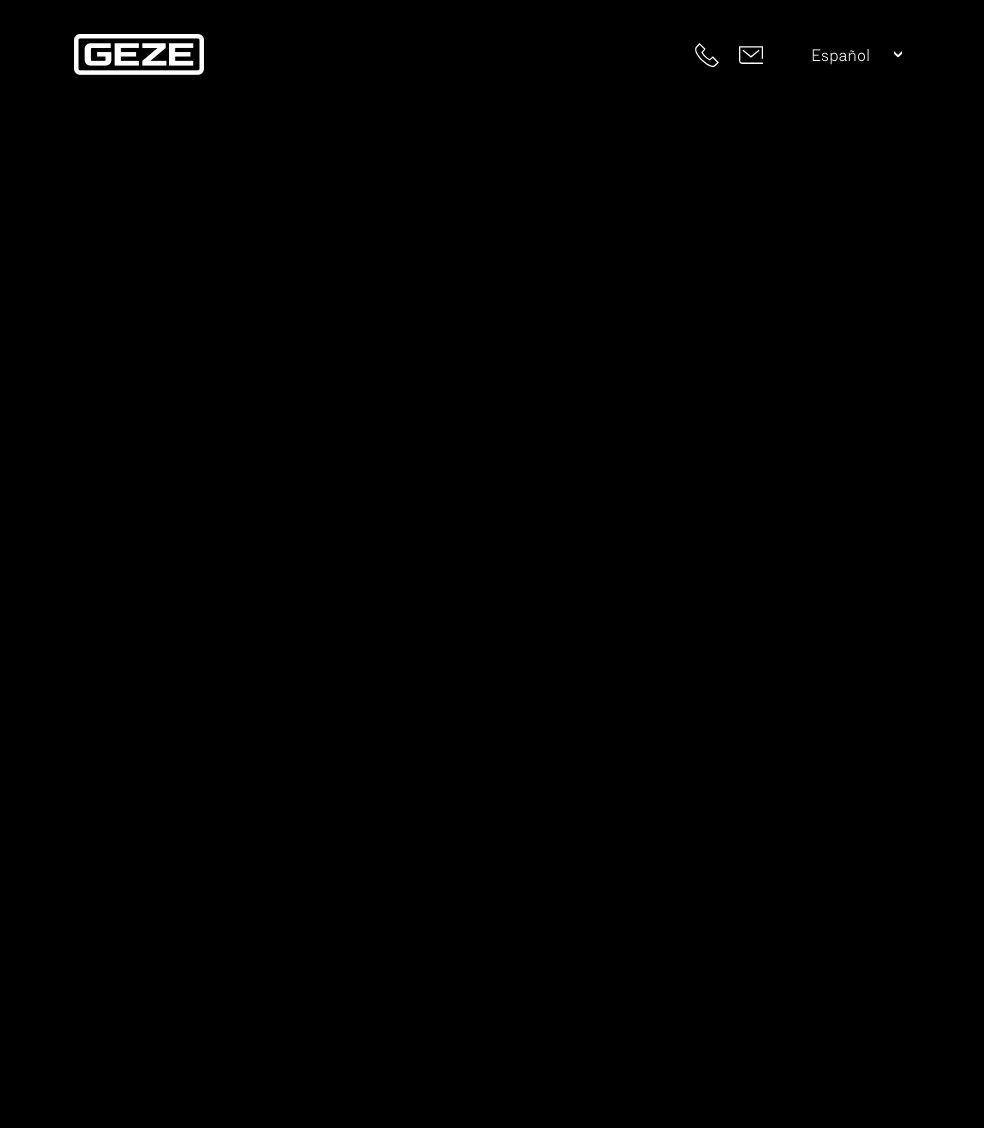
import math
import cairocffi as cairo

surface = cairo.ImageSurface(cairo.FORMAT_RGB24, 984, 1128)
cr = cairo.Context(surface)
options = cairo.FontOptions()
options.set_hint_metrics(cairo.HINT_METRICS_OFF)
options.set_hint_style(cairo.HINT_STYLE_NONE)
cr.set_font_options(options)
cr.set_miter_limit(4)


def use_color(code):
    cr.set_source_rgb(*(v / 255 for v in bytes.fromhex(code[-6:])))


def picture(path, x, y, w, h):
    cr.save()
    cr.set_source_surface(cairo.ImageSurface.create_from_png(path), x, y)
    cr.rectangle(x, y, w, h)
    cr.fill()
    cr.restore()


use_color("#000000")
cr.paint()
picture("img1.png", 74, 34, 130, 41)
picture("img2.png", 695, 43, 24, 24)
picture("img3.png", 739, 46, 24, 18)
cr.select_font_face("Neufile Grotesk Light")
cr.set_font_size(16)
use_color("#ffffff")
cr.move_to(811, 61)
cr.show_text("Español")
picture("img4.png", 894, 51, 8, 7)
surface.write_to_png("result.png")
